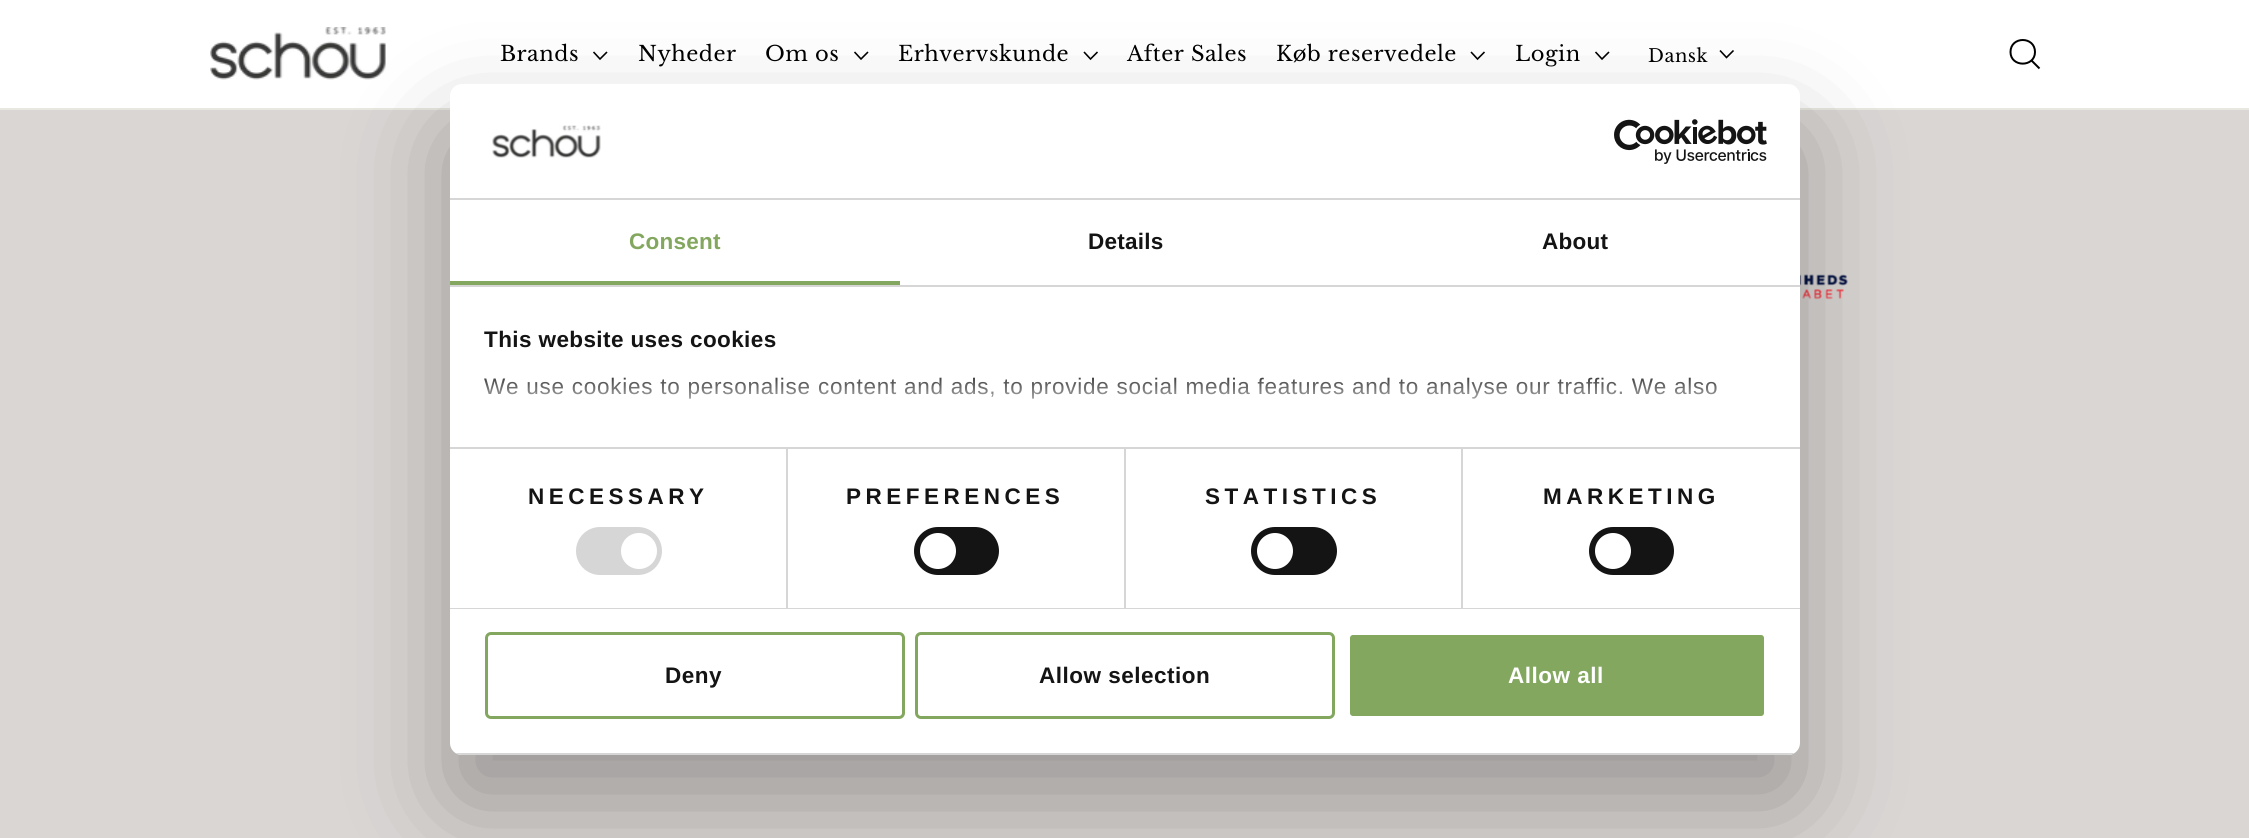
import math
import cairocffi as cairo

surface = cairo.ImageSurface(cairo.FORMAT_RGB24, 2249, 838)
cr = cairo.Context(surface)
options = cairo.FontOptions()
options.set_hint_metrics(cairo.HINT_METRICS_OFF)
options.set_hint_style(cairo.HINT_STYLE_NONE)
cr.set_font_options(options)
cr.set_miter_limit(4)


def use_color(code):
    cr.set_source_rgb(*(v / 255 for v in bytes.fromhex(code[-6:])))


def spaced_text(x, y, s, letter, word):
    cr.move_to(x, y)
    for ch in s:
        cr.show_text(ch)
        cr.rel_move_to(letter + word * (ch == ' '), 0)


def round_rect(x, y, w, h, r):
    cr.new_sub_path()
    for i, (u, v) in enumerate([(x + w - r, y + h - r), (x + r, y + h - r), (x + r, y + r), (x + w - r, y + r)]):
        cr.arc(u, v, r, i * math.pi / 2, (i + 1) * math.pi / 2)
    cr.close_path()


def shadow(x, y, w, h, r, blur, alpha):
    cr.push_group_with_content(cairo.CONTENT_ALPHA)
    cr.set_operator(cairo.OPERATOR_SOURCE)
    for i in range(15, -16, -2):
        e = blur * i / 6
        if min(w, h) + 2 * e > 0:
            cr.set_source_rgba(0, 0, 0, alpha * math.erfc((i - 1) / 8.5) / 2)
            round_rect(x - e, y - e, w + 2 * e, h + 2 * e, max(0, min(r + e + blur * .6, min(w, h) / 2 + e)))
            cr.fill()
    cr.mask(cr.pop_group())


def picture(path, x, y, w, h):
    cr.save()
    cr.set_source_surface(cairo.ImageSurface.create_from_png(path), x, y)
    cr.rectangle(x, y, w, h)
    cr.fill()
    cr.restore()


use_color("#dad6d4")
cr.paint()
use_color("#ffffff")
cr.rectangle(0, 0, 2249, 108)
cr.fill()
use_color("#e8e8e1")
cr.rectangle(0, 108, 2249, 2)
cr.fill()
picture("img1.png", 210, 27, 176, 53)
cr.select_font_face("Libre Baskerville")
cr.set_font_size(21)
use_color("#000000")
spaced_text(500, 61, "Brands", 0.5, 0)
cr.new_path()
cr.move_to(593.5, 52)
cr.line_to(600, 59)
cr.line_to(607, 52)
cr.set_line_width(1.6)
cr.stroke()
spaced_text(638, 61, "Nyheder", 0.5, 0)
spaced_text(765, 61, "Om os", 0.5, 0)
cr.new_path()
cr.move_to(854.5, 52)
cr.line_to(861, 59)
cr.line_to(868, 52)
cr.stroke()
spaced_text(898, 61, "Erhvervskunde", 0.5, 0)
cr.new_path()
cr.move_to(1084, 52)
cr.line_to(1090.5, 59)
cr.line_to(1097.5, 52)
cr.stroke()
spaced_text(1127, 61, "After Sales", 0.5, 0)
spaced_text(1276, 61, "Køb reservedele", 0.5, 0)
cr.new_path()
cr.move_to(1471, 52)
cr.line_to(1477.5, 59)
cr.line_to(1484.5, 52)
cr.stroke()
spaced_text(1515, 61, "Login", 0.5, 0)
cr.new_path()
cr.move_to(1595.5, 52)
cr.line_to(1602, 59)
cr.line_to(1609, 52)
cr.stroke()
cr.set_font_size(18)
spaced_text(1648, 62, "Dansk", 0.5, 0)
cr.new_path()
cr.move_to(1720, 50.5)
cr.line_to(1726.5, 57.5)
cr.line_to(1733.5, 50.5)
cr.stroke()
cr.new_path()
cr.move_to(2035, 52)
cr.curve_to(2035, 67.5, 2010.5, 67.5, 2010.5, 52)
cr.curve_to(2010.5, 36, 2035, 36, 2035, 52)
cr.close_path()
cr.move_to(2039.5, 68.5)
cr.line_to(2031.5, 60.5)
cr.set_line_width(2)
cr.stroke()
picture("img2.png", 1800, 274, 48, 26)
use_color("#000000")
shadow(450, 132, 1350, 671, 12, 51, 0.3)
use_color("#ffffff")
round_rect(450, 84, 1350, 671, 12)
cr.fill()
use_color("#d6d6d6")
cr.rectangle(450, 198, 1350, 2)
cr.fill()
picture("img3.png", 492, 125, 109, 33)
picture("img4.png", 1614, 119, 153, 45)
cr.rectangle(450, 285, 1350, 2)
cr.fill()
use_color("#83a75f")
cr.rectangle(450, 281, 450, 4)
cr.fill()
cr.select_font_face("Liberation Sans", cairo.FONT_SLANT_NORMAL, cairo.FONT_WEIGHT_BOLD)
cr.set_font_size(22.5)
spaced_text(629, 249, "Consent", 0.25, 0)
use_color("#141414")
spaced_text(1088, 249, "Details", 0.25, 0)
spaced_text(1542, 249, "About", 0.25, 0)
use_color("#d6d6d6")
cr.rectangle(450, 447, 1350, 2)
cr.fill()
use_color("#141414")
spaced_text(484, 347, "This website uses cookies", 0.4, 0)
cr.select_font_face("Liberation Sans")
spaced_text(484, 394, "We use cookies to personalise content and ads, to provide social media features and to analyse our traffic. We also", 0.75, 0)
gradient = cairo.LinearGradient(1110, 448, 1110, 368)
gradient.add_color_stop_rgba(0, 1, 1, 1, 1)
gradient.add_color_stop_rgba(0.5, 1, 1, 1, 0.8)
gradient.add_color_stop_rgba(1, 1, 1, 1, 0)
cr.set_source(gradient)
cr.rectangle(484, 377, 1233, 22)
cr.fill()
use_color("#d6d6d6")
cr.rectangle(450, 608, 1350, 1)
cr.fill()
cr.rectangle(786, 449, 2, 159)
cr.fill()
cr.select_font_face("Liberation Sans", cairo.FONT_SLANT_NORMAL, cairo.FONT_WEIGHT_BOLD)
use_color("#141414")
spaced_text(528, 504, "NECESSARY", 4.5, 0)
use_color("#d6d6d6")
round_rect(576, 527, 86, 48, 24)
cr.fill()
use_color("#ffffff")
cr.arc(639, 551, 18, 0, 2 * math.pi)
cr.fill()
use_color("#d6d6d6")
cr.rectangle(1124, 449, 2, 159)
cr.fill()
use_color("#141414")
spaced_text(846, 504, "PREFERENCES", 4.5, 0)
round_rect(914, 527, 85, 48, 24)
cr.fill()
use_color("#ffffff")
cr.arc(938, 551, 18, 0, 2 * math.pi)
cr.fill()
use_color("#d6d6d6")
cr.rectangle(1461, 449, 2, 159)
cr.fill()
use_color("#141414")
spaced_text(1205, 504, "STATISTICS", 4.5, 0)
round_rect(1251, 527, 86, 48, 24)
cr.fill()
use_color("#ffffff")
cr.arc(1275, 551, 18, 0, 2 * math.pi)
cr.fill()
use_color("#141414")
spaced_text(1543, 504, "MARKETING", 4.5, 0)
round_rect(1589, 527, 85, 48, 24)
cr.fill()
use_color("#ffffff")
cr.arc(1613, 551, 18, 0, 2 * math.pi)
cr.fill()
cr.save()
round_rect(450, 84, 1350, 671, 12)
cr.clip()
use_color("#d6d6d6")
cr.rectangle(450, 753, 1350, 2)
cr.fill()
cr.restore()
round_rect(486.5, 633.5, 417, 84, 4.5)
use_color("#83a75f")
cr.set_line_width(3)
cr.stroke()
use_color("#141414")
spaced_text(665, 683, "Deny", 0.5, 0)
round_rect(916.5, 633.5, 417, 84, 4.5)
use_color("#83a75f")
cr.stroke()
use_color("#141414")
spaced_text(1039, 683, "Allow selection", 0.5, 0)
use_color("#83a75f")
round_rect(1348.5, 633.5, 417, 84, 4.5)
cr.fill_preserve()
use_color("#ffffff")
cr.stroke()
spaced_text(1508, 683, "Allow all", 0.5, 0)
surface.write_to_png("result.png")
